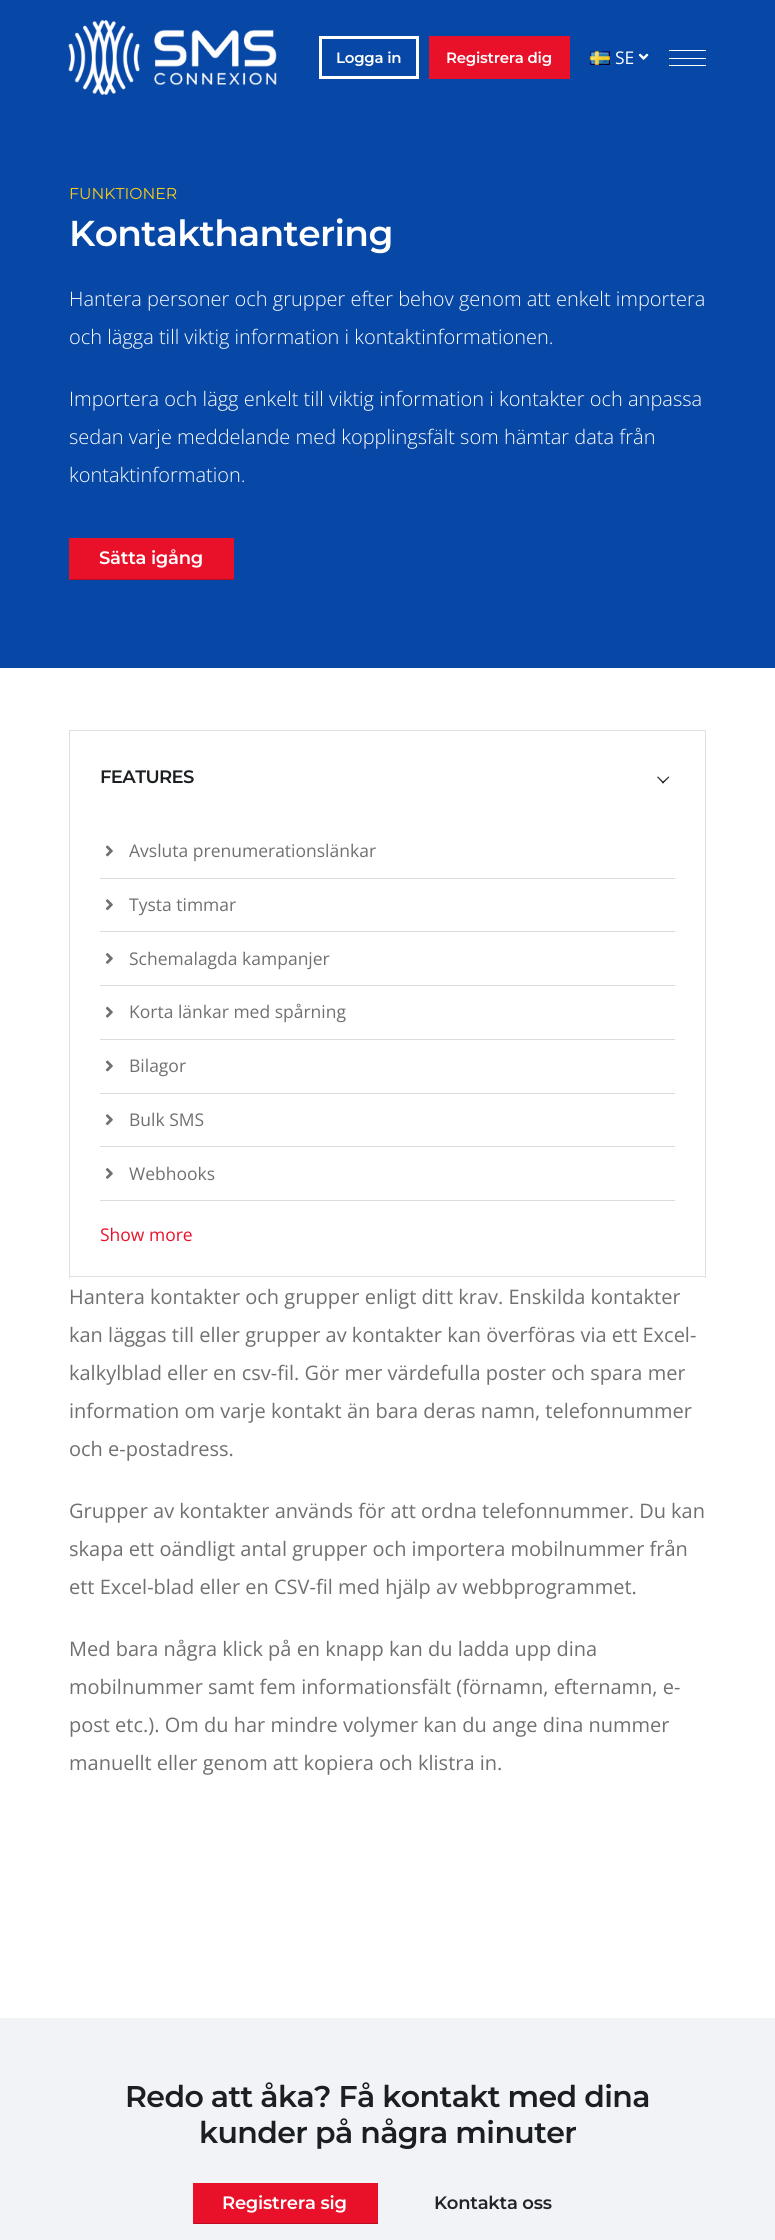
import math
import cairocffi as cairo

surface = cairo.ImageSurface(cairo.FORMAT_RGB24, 775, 2240)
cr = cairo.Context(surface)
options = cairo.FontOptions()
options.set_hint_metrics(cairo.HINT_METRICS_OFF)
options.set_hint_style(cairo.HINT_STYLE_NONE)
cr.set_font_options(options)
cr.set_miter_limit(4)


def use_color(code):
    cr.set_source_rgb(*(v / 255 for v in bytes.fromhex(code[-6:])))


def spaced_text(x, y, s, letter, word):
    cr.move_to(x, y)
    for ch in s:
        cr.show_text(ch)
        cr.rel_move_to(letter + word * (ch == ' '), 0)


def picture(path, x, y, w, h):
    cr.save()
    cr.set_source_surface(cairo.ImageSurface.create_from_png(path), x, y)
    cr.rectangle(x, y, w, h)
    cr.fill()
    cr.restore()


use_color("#ffffff")
cr.paint()
use_color("#0747a6")
cr.rectangle(0, 0, 775, 668)
cr.fill()
picture("img1.png", 68, 20, 209, 75)
cr.rectangle(320.5, 37.5, 97, 40)
use_color("#ffffff")
cr.set_line_width(3)
cr.stroke()
cr.select_font_face("Montserrat SemiBold")
cr.set_font_size(15)
spaced_text(336, 63, "Logga in", -0.25, 0)
use_color("#e91029")
cr.rectangle(429, 36, 141, 43)
cr.fill()
use_color("#ffffff")
spaced_text(446, 63, "Registrera dig", -0.25, 0)
picture("img2.png", 589, 51, 21, 14)
cr.select_font_face("Open Sans")
cr.set_font_size(17.5)
cr.move_to(615, 64)
cr.show_text("SE")
picture("img3.png", 638, 53, 11, 7)
cr.rectangle(669, 50, 37, 1)
cr.fill()
cr.rectangle(669, 58, 37, 1)
cr.fill()
cr.rectangle(669, 65, 37, 1)
cr.fill()
cr.select_font_face("Montserrat")
cr.set_font_size(15.75)
use_color("#f7ca18")
cr.move_to(69, 199)
cr.show_text("FUNKTIONER")
cr.select_font_face("Montserrat SemiBold")
cr.set_font_size(36)
use_color("#ffffff")
spaced_text(69, 246, "Kontakthantering", -0.6, 0)
cr.select_font_face("Open Sans Light")
cr.set_font_size(20)
cr.move_to(69, 306)
cr.show_text("Hantera personer och grupper efter behov genom att enkelt importera")
cr.move_to(69, 344)
cr.show_text("och lägga till viktig information i kontaktinformationen.")
cr.move_to(69, 406)
cr.show_text("Importera och lägg enkelt till viktig information i kontakter och anpassa")
cr.move_to(69, 444)
cr.show_text("sedan varje meddelande med kopplingsfält som hämtar data från")
cr.move_to(69, 482)
cr.show_text("kontaktinformation.")
use_color("#e91029")
cr.rectangle(70, 538, 164, 41)
cr.fill()
use_color("#b90d21")
cr.rectangle(69, 579, 165, 1)
cr.fill()
use_color("#e91029")
cr.rectangle(69, 538, 1, 42)
cr.fill()
cr.select_font_face("Montserrat SemiBold")
cr.set_font_size(18)
use_color("#ffffff")
spaced_text(99, 564, "Sätta igång", -0.25, 0)
use_color("#dae2e6")
cr.rectangle(69, 730, 637, 1)
cr.fill()
cr.rectangle(705, 730, 1, 95)
cr.fill()
cr.rectangle(69, 730, 1, 95)
cr.fill()
use_color("#1c1f21")
spaced_text(100, 783, "FEATURES", -0.6, 0)
cr.new_path()
cr.move_to(669.5, 777)
cr.line_to(663, 783.5)
cr.line_to(662, 782.5)
cr.line_to(668.5, 776.5)
cr.close_path()
cr.fill()
cr.new_path()
cr.move_to(664, 782.5)
cr.line_to(663, 783.5)
cr.line_to(657, 777)
cr.line_to(658, 776.5)
cr.close_path()
cr.fill()
use_color("#dae2e6")
cr.rectangle(705, 825, 1, 453)
cr.fill()
cr.rectangle(69, 1276, 637, 1)
cr.fill()
cr.rectangle(69, 825, 1, 453)
cr.fill()
use_color("#dbdbdb")
cr.rectangle(100, 878, 575, 1)
cr.fill()
picture("img4.png", 105, 845, 8, 12)
cr.select_font_face("Open Sans")
cr.set_font_size(17.5)
use_color("#707070")
cr.move_to(129, 857)
cr.show_text("Avsluta prenumerationslänkar")
use_color("#dbdbdb")
cr.rectangle(100, 931, 575, 1)
cr.fill()
picture("img5.png", 105, 899, 8, 12)
use_color("#707070")
cr.move_to(129, 911)
cr.show_text("Tysta timmar")
use_color("#dbdbdb")
cr.rectangle(100, 985, 575, 1)
cr.fill()
picture("img6.png", 105, 953, 8, 11)
use_color("#707070")
cr.move_to(129, 965)
cr.show_text("Schemalagda kampanjer")
use_color("#dbdbdb")
cr.rectangle(100, 1039, 575, 1)
cr.fill()
picture("img7.png", 105, 1006, 8, 12)
use_color("#707070")
cr.move_to(129, 1018)
cr.show_text("Korta länkar med spårning")
use_color("#dbdbdb")
cr.rectangle(100, 1093, 575, 1)
cr.fill()
picture("img4.png", 105, 1060, 8, 12)
use_color("#707070")
cr.move_to(129, 1072)
cr.show_text("Bilagor")
use_color("#dbdbdb")
cr.rectangle(100, 1146, 575, 1)
cr.fill()
picture("img5.png", 105, 1114, 8, 12)
use_color("#707070")
cr.move_to(129, 1126)
cr.show_text("Bulk SMS")
use_color("#dbdbdb")
cr.rectangle(100, 1200, 575, 1)
cr.fill()
picture("img6.png", 105, 1168, 8, 11)
use_color("#707070")
cr.move_to(129, 1180)
cr.show_text("Webhooks")
use_color("#e91029")
cr.move_to(100, 1241)
cr.show_text("Show more")
cr.set_font_size(20)
use_color("#707070")
cr.move_to(69, 1304)
cr.show_text("Hantera kontakter och grupper enligt ditt krav. Enskilda kontakter")
cr.move_to(69, 1342)
cr.show_text("kan läggas till eller grupper av kontakter kan överföras via ett Excel-")
cr.move_to(69, 1380)
cr.show_text("kalkylblad eller en csv-fil. Gör mer värdefulla poster och spara mer")
cr.move_to(69, 1418)
cr.show_text("information om varje kontakt än bara deras namn, telefonnummer")
cr.move_to(69, 1456)
cr.show_text("och e-postadress.")
cr.move_to(69, 1518)
cr.show_text("Grupper av kontakter används för att ordna telefonnummer. Du kan")
cr.move_to(69, 1556)
cr.show_text("skapa ett oändligt antal grupper och importera mobilnummer från")
cr.move_to(69, 1594)
cr.show_text("ett Excel-blad eller en CSV-fil med hjälp av webbprogrammet.")
cr.move_to(69, 1656)
cr.show_text("Med bara några klick på en knapp kan du ladda upp dina")
cr.move_to(69, 1694)
cr.show_text("mobilnummer samt fem informationsfält (förnamn, efternamn, e-")
cr.move_to(69, 1732)
cr.show_text("post etc.). Om du har mindre volymer kan du ange dina nummer")
cr.move_to(69, 1770)
cr.show_text("manuellt eller genom att kopiera och klistra in.")
use_color("#f1f3f7")
cr.rectangle(0, 2018, 775, 222)
cr.fill()
cr.select_font_face("Montserrat SemiBold")
cr.set_font_size(30)
use_color("#1c1f21")
spaced_text(125, 2107, "Redo att åka? Få kontakt med dina", -0.6, 0)
spaced_text(199, 2143, "kunder på några minuter", -0.6, 0)
use_color("#e91029")
cr.rectangle(194, 2183, 184, 40)
cr.fill()
use_color("#b90d21")
cr.rectangle(193, 2223, 185, 1)
cr.fill()
use_color("#e91029")
cr.rectangle(193, 2183, 1, 41)
cr.fill()
cr.set_font_size(18)
use_color("#ffffff")
spaced_text(222, 2209, "Registrera sig", -0.25, 0)
use_color("#212529")
spaced_text(434, 2209, "Kontakta oss", -0.25, 0)
surface.write_to_png("result.png")
